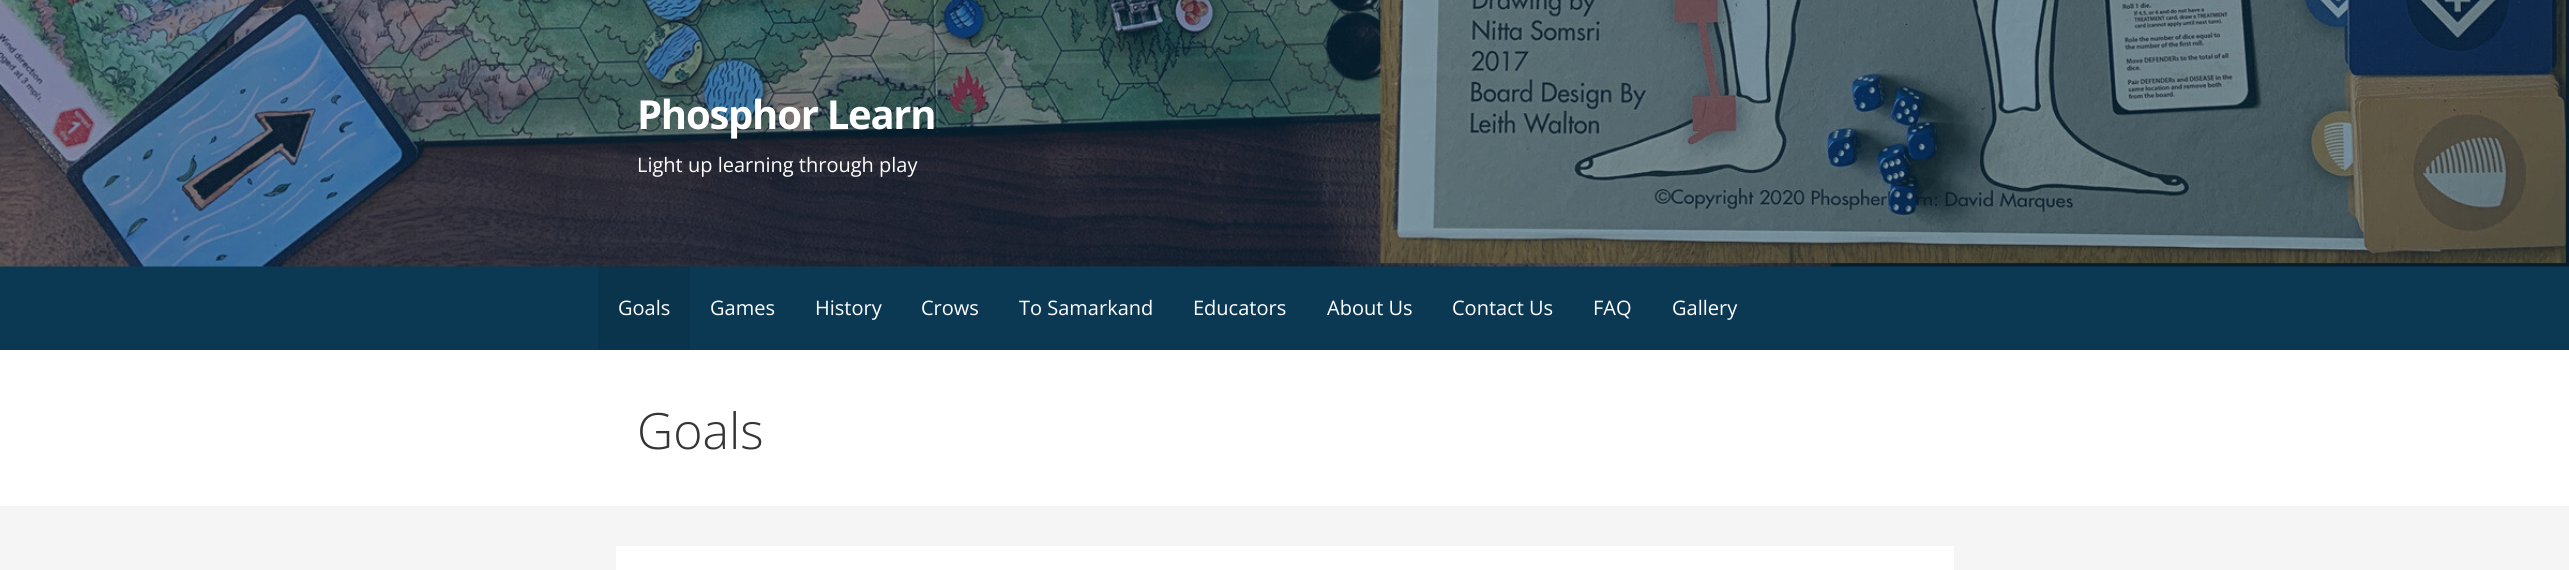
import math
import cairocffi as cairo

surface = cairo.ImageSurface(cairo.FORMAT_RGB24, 2569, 570)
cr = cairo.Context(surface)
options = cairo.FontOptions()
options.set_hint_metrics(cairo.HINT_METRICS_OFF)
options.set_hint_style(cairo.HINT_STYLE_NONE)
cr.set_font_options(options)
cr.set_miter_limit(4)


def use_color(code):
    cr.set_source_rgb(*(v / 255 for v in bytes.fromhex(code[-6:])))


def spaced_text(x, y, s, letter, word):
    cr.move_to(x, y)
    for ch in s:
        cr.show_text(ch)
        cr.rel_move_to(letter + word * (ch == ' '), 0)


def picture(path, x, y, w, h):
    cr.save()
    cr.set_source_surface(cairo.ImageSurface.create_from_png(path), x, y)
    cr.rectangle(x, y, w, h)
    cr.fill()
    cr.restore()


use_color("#f5f5f5")
cr.paint()
use_color("#0b3954")
cr.rectangle(0, 266, 2569, 84)
cr.fill()
picture("img1.png", 0, 0, 2569, 267)
cr.select_font_face("Open Sans", cairo.FONT_SLANT_NORMAL, cairo.FONT_WEIGHT_BOLD)
cr.set_font_size(40)
use_color("#ffffff")
spaced_text(637, 129, "Phosphor Learn", -1.25, 0)
cr.select_font_face("Open Sans")
cr.set_font_size(20)
cr.move_to(637, 172)
cr.show_text("Light up learning through play")
cr.set_source_rgba(0, 0, 0, 0.1)
cr.rectangle(598, 266, 92, 84)
cr.fill()
use_color("#ffffff")
cr.move_to(618, 315)
cr.show_text("Goals")
cr.move_to(710, 315)
cr.show_text("Games")
cr.move_to(815, 315)
cr.show_text("History")
cr.move_to(921, 315)
cr.show_text("Crows")
cr.move_to(1019, 315)
cr.show_text("To Samarkand")
cr.move_to(1193, 315)
cr.show_text("Educators")
cr.move_to(1327, 315)
cr.show_text("About Us")
cr.move_to(1452, 315)
cr.show_text("Contact Us")
cr.move_to(1593, 315)
cr.show_text("FAQ")
cr.move_to(1672, 315)
cr.show_text("Gallery")
cr.rectangle(0, 350, 2569, 156)
cr.fill()
cr.select_font_face("Open Sans Light")
cr.set_font_size(50)
use_color("#353535")
cr.move_to(637, 449)
cr.show_text("Goals")
use_color("#ffffff")
cr.rectangle(616, 546, 1338, 24)
cr.fill()
surface.write_to_png("result.png")
